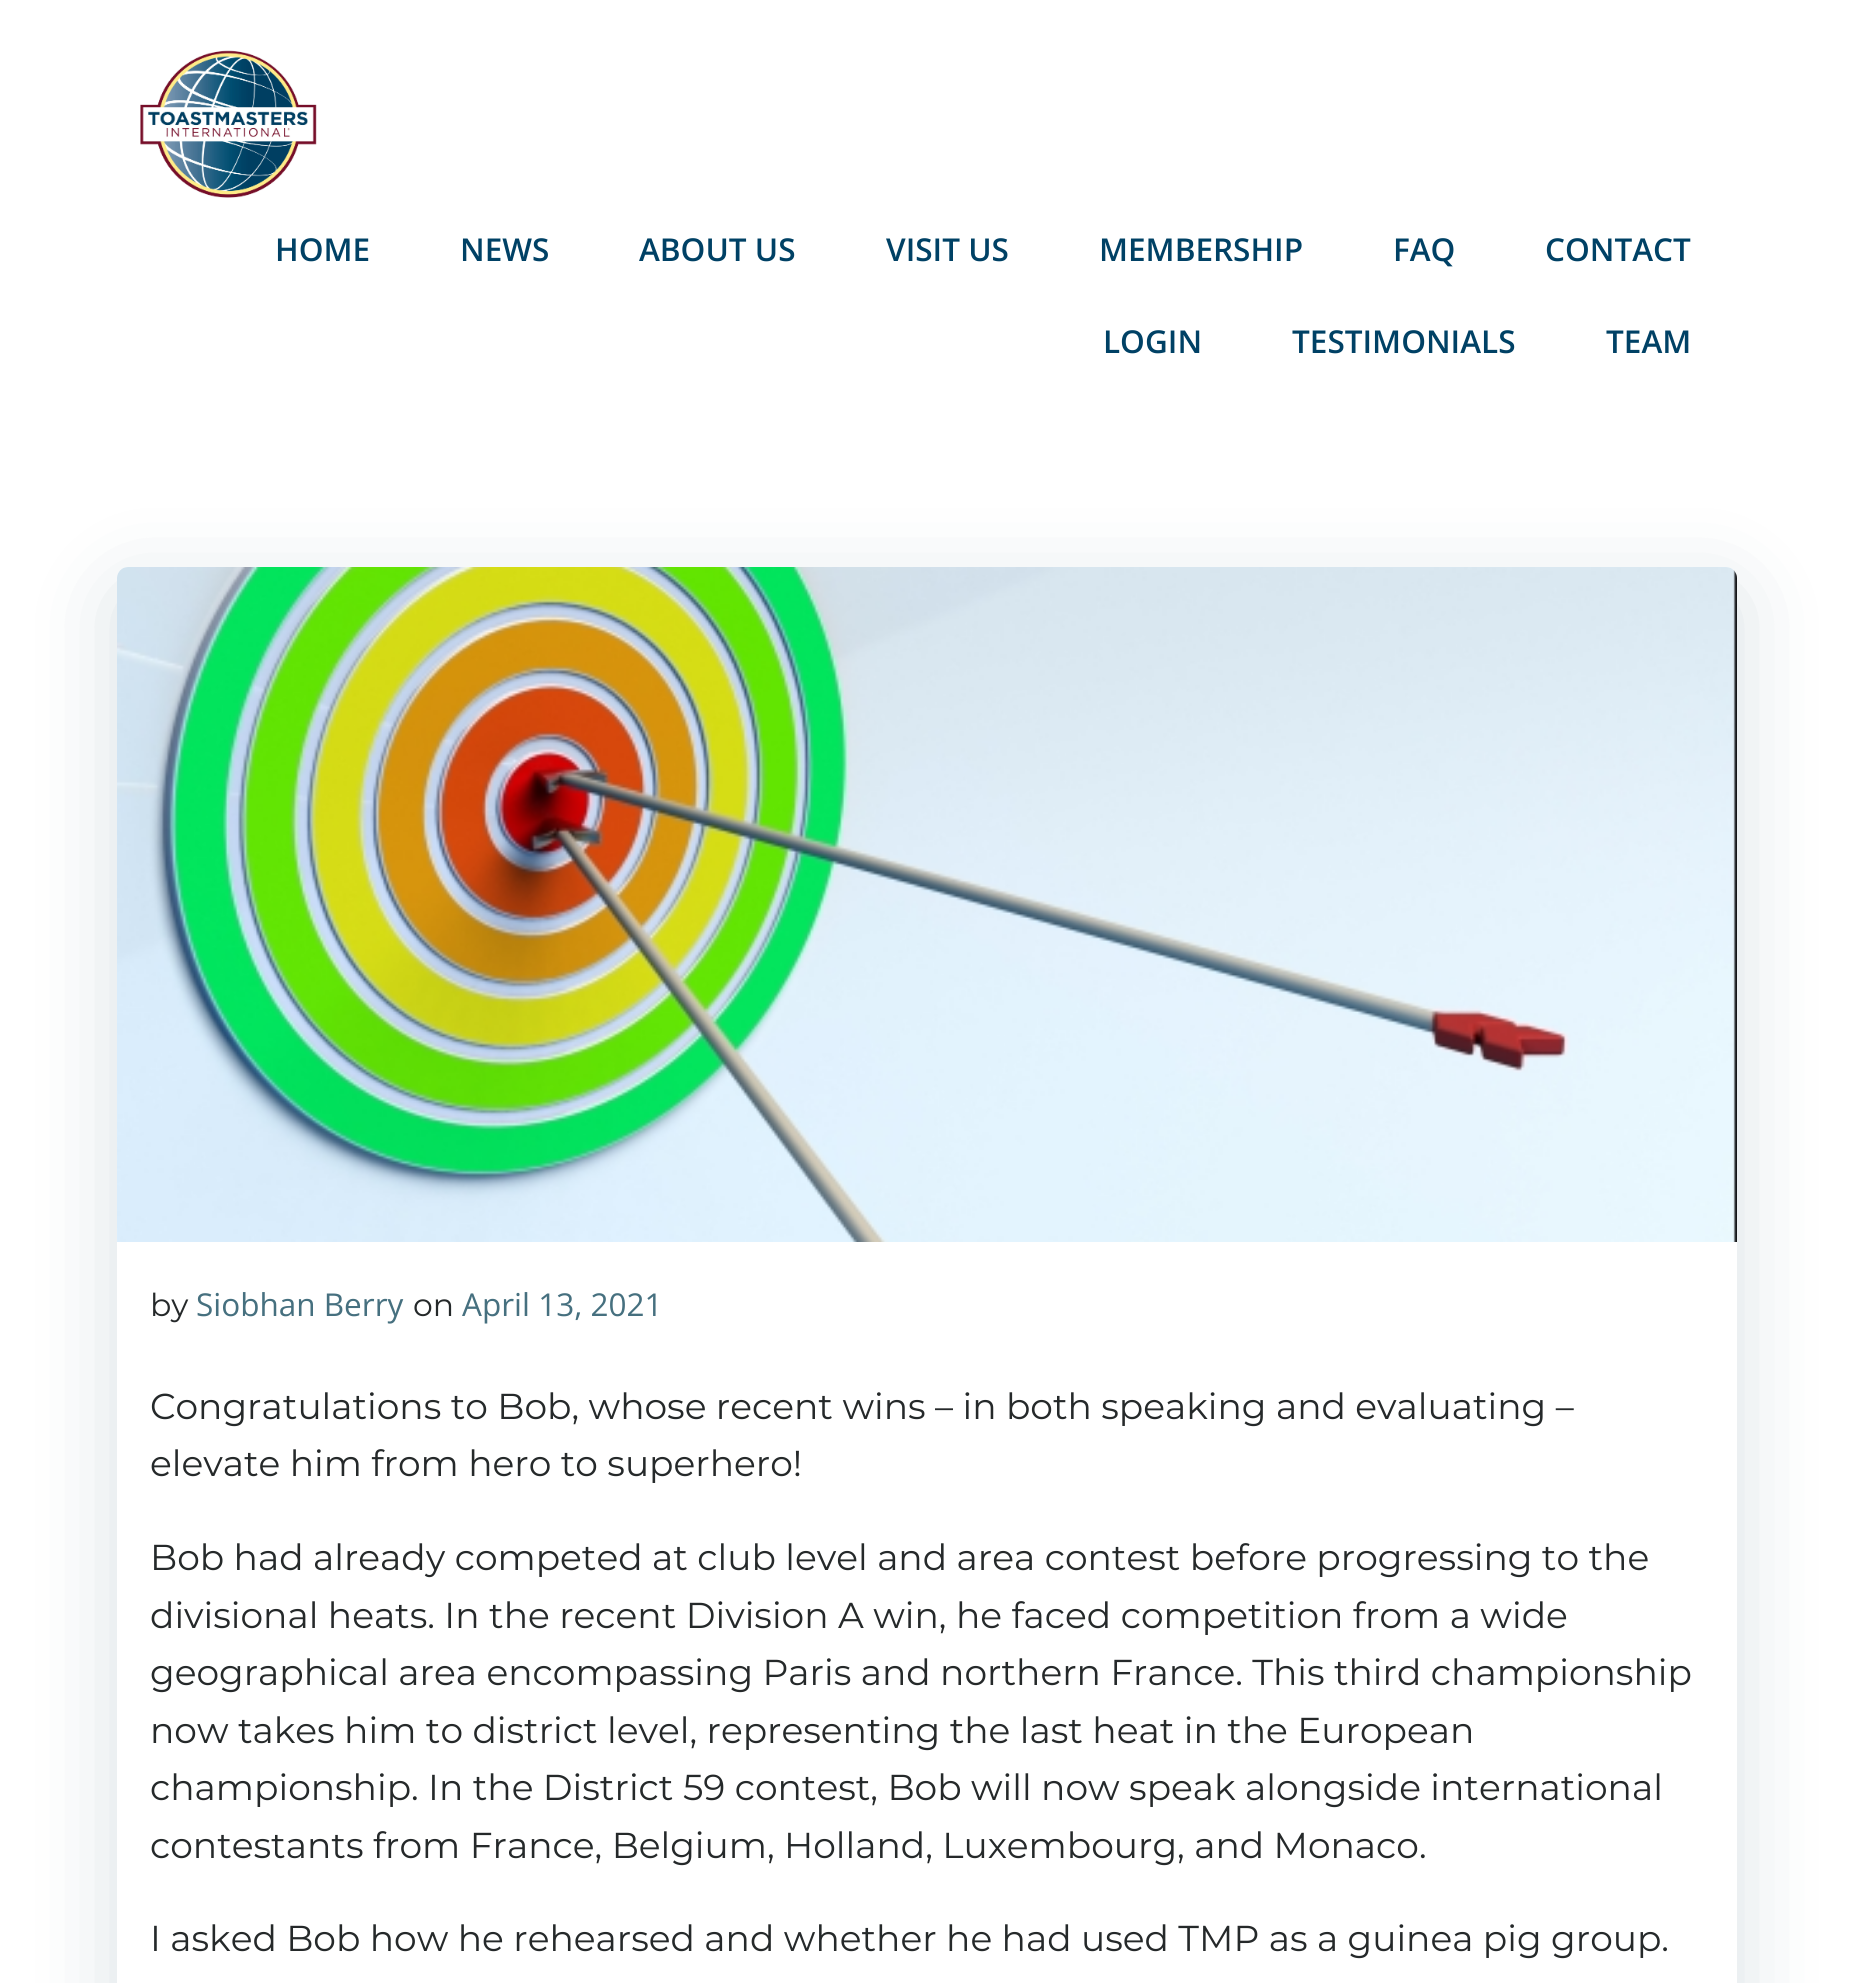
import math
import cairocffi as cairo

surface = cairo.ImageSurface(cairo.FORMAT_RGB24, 1850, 1983)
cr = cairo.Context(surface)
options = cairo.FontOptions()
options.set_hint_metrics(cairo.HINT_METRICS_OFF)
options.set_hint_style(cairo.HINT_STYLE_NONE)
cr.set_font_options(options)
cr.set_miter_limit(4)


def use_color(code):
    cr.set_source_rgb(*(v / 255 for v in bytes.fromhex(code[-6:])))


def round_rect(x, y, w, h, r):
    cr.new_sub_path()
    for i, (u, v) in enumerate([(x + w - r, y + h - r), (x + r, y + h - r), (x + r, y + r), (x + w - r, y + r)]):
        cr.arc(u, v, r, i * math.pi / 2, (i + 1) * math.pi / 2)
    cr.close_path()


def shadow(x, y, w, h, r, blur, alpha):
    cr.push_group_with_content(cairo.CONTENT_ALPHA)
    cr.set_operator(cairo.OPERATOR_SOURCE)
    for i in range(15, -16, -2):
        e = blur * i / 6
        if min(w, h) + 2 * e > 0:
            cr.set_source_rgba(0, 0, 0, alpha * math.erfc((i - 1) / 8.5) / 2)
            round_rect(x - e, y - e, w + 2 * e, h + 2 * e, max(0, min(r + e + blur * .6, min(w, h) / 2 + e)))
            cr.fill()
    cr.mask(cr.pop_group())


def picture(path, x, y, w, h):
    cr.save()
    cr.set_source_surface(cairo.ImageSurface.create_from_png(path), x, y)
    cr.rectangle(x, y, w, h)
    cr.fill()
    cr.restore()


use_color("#ffffff")
cr.paint()
picture("img1.png", 140, 50, 177, 148)
cr.select_font_face("Open Sans SemiBold")
cr.set_font_size(31.5)
use_color("#004165")
cr.move_to(275, 261)
cr.show_text("HOME")
cr.move_to(460, 261)
cr.show_text("NEWS")
cr.move_to(639, 261)
cr.show_text("ABOUT US")
cr.move_to(886, 261)
cr.show_text("VISIT US")
cr.move_to(1099, 261)
cr.show_text("MEMBERSHIP")
cr.move_to(1393, 261)
cr.show_text("FAQ")
cr.move_to(1545, 261)
cr.show_text("CONTACT")
cr.move_to(1103, 353)
cr.show_text("LOGIN")
cr.move_to(1292, 353)
cr.show_text("TESTIMONIALS")
cr.move_to(1606, 353)
cr.show_text("TEAM")
use_color("#01334a")
shadow(117, 590, 1620, 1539, 11, 45, 0.15)
use_color("#ffffff")
round_rect(117, 567, 1620, 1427, 11)
cr.fill()
picture("img2.png", 117, 567, 1620, 675)
cr.select_font_face("Montserrat")
use_color("#25292a")
cr.move_to(150, 1316)
cr.show_text("by")
cr.select_font_face("Open Sans")
use_color("#46707f")
cr.move_to(196, 1316)
cr.show_text("Siobhan Berry")
cr.select_font_face("Montserrat")
use_color("#25292a")
cr.move_to(413, 1316)
cr.show_text("on")
cr.select_font_face("Open Sans")
use_color("#46707f")
cr.move_to(462, 1316)
cr.show_text("April 13, 2021")
cr.select_font_face("Montserrat")
cr.set_font_size(36)
use_color("#25292a")
cr.move_to(150, 1419)
cr.show_text("Congratulations to Bob, whose recent wins – in both speaking and evaluating –")
cr.move_to(150, 1476)
cr.show_text("elevate him from hero to superhero!")
cr.move_to(150, 1570)
cr.show_text("Bob had already competed at club level and area contest before progressing to the")
cr.move_to(150, 1628)
cr.show_text("divisional heats. In the recent Division A win, he faced competition from a wide")
cr.move_to(150, 1685)
cr.show_text("geographical area encompassing Paris and northern France. This third championship")
cr.move_to(150, 1743)
cr.show_text("now takes him to district level, representing the last heat in the European")
cr.move_to(150, 1800)
cr.show_text("championship. In the District 59 contest, Bob will now speak alongside international")
cr.move_to(150, 1858)
cr.show_text("contestants from France, Belgium, Holland, Luxembourg, and Monaco.")
cr.move_to(150, 1951)
cr.show_text("I asked Bob how he rehearsed and whether he had used TMP as a guinea pig group.")
surface.write_to_png("result.png")
